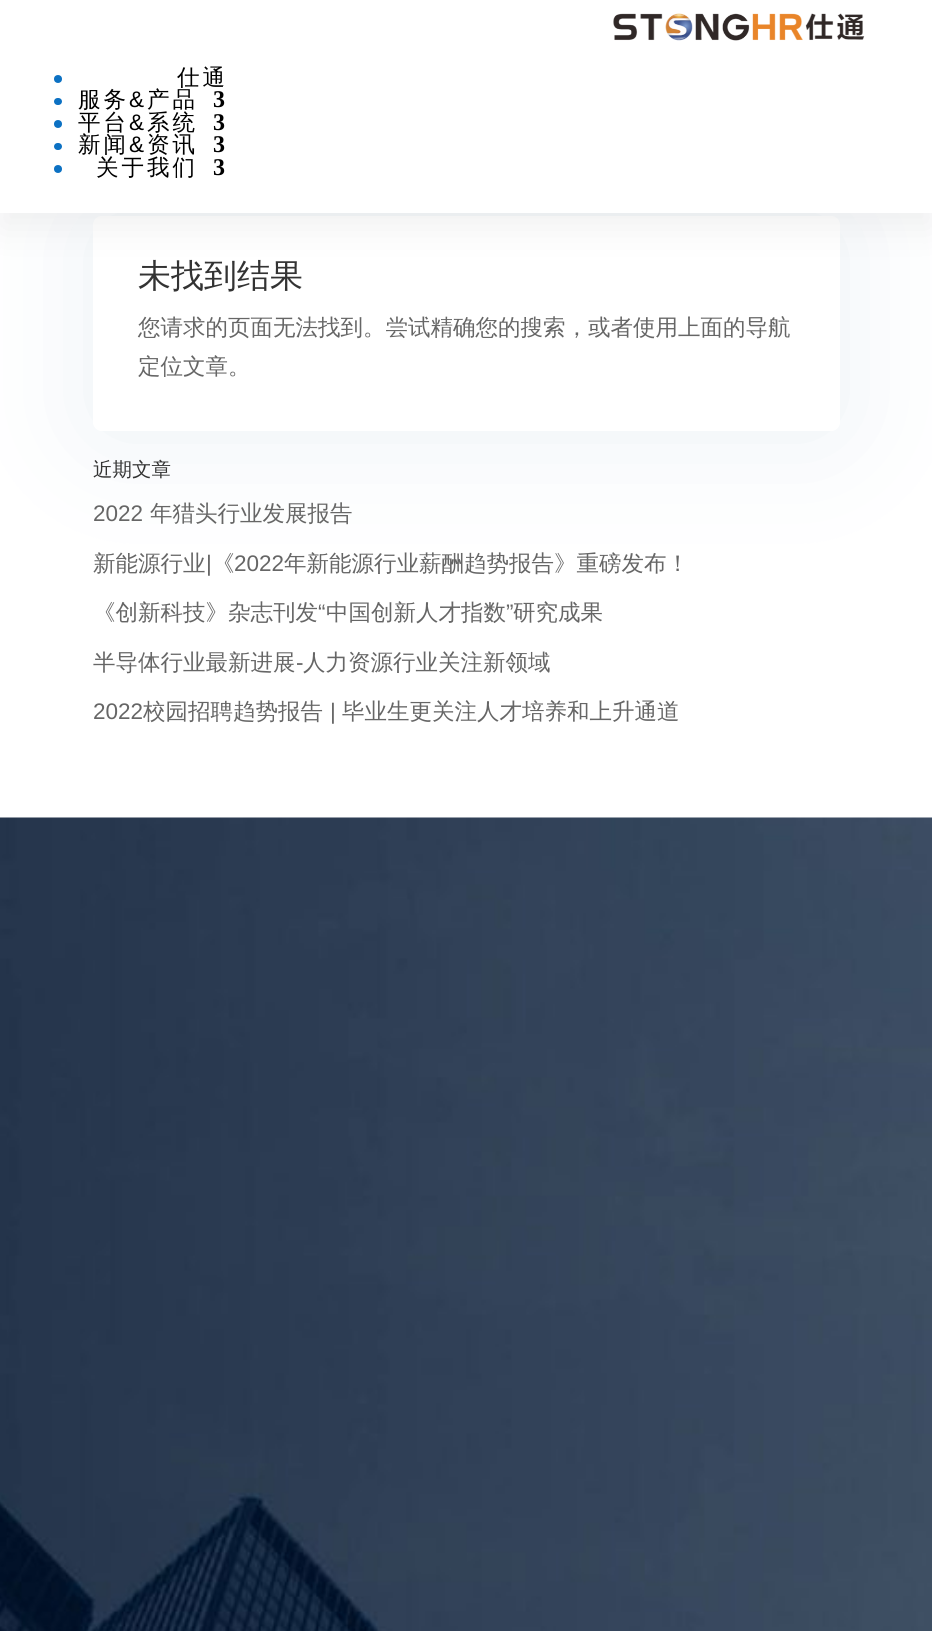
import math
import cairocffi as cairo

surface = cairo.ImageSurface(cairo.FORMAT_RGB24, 932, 1631)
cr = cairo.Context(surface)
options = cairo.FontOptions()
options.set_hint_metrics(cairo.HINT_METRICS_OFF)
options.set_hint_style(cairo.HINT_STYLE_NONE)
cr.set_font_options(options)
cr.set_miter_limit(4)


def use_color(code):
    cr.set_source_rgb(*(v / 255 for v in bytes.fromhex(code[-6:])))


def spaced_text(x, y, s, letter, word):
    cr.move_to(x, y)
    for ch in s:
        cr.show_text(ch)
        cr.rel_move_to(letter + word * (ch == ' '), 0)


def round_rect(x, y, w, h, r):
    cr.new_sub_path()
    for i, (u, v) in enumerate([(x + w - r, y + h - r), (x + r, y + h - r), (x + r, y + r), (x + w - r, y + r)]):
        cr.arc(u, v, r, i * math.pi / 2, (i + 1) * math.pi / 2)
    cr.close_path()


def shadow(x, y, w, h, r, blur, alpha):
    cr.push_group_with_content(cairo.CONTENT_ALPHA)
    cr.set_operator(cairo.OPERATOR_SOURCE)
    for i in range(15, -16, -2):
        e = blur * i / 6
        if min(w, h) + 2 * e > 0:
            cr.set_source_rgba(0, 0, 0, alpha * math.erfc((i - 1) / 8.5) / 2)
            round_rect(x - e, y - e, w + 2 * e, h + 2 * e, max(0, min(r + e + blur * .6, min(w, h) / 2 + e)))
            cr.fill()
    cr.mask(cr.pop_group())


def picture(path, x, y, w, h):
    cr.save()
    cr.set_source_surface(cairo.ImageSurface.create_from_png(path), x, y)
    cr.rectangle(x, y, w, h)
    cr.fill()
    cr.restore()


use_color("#ffffff")
cr.paint()
use_color("#000000")
shadow(0, 15, 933, 213, 0, 19, 0.06)
cr.save()
cr.set_fill_rule(cairo.FILL_RULE_EVEN_ODD)
cr.new_path()
cr.move_to(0, 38)
cr.line_to(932, 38)
cr.line_to(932, 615)
cr.line_to(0, 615)
cr.close_path()
cr.move_to(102, 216)
cr.line_to(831, 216)
cr.curve_to(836, 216, 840, 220, 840, 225)
cr.line_to(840, 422)
cr.curve_to(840, 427, 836, 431, 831, 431)
cr.line_to(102, 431)
cr.curve_to(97, 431, 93, 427, 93, 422)
cr.line_to(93, 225)
cr.curve_to(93, 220, 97, 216, 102, 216)
cr.close_path()
cr.clip()
use_color("#a0bed4")
shadow(93, 219, 747, 215, 9, 60, 0.22)
cr.restore()
use_color("#ffffff")
cr.rectangle(0, 0, 932, 213)
cr.fill()
picture("img1.png", 613, 13, 252, 28)
use_color("#0c71c3")
cr.arc(58, 79, 4, 0, 2 * math.pi)
cr.fill()
cr.select_font_face("WenQuanYi Zen Hei Medium")
cr.set_font_size(22.5)
use_color("#000000")
spaced_text(177, 85, "仕通", 3, 0)
use_color("#0c71c3")
round_rect(54, 98, 8, 7, 3.5)
cr.fill()
use_color("#000000")
spaced_text(78, 107, "服务", 3, 0)
cr.select_font_face("Liberation Sans")
spaced_text(129, 107, "&", 3, 0)
cr.select_font_face("WenQuanYi Zen Hei Medium")
spaced_text(147, 107, "产品", 3, 0)
cr.select_font_face("Liberation Serif", cairo.FONT_SLANT_NORMAL, cairo.FONT_WEIGHT_BOLD)
cr.set_font_size(24)
spaced_text(213, 107, "3", 3, 0)
use_color("#0c71c3")
cr.new_path()
cr.arc(58, 124, 4, 0, 2 * math.pi)
cr.fill()
cr.select_font_face("WenQuanYi Zen Hei Medium")
cr.set_font_size(22.5)
use_color("#000000")
spaced_text(78, 130, "平台", 3, 0)
cr.select_font_face("Liberation Sans")
spaced_text(129, 130, "&", 3, 0)
cr.select_font_face("WenQuanYi Zen Hei Medium")
spaced_text(147, 130, "系统", 3, 0)
cr.select_font_face("Liberation Serif", cairo.FONT_SLANT_NORMAL, cairo.FONT_WEIGHT_BOLD)
cr.set_font_size(24)
spaced_text(213, 130, "3", 3, 0)
use_color("#0c71c3")
round_rect(54, 143, 8, 7, 3.5)
cr.fill()
cr.select_font_face("WenQuanYi Zen Hei Medium")
cr.set_font_size(22.5)
use_color("#000000")
spaced_text(78, 152, "新闻", 3, 0)
cr.select_font_face("Liberation Sans")
spaced_text(129, 152, "&", 3, 0)
cr.select_font_face("WenQuanYi Zen Hei Medium")
spaced_text(147, 152, "资讯", 3, 0)
cr.select_font_face("Liberation Serif", cairo.FONT_SLANT_NORMAL, cairo.FONT_WEIGHT_BOLD)
cr.set_font_size(24)
spaced_text(213, 152, "3", 3, 0)
use_color("#0c71c3")
cr.new_path()
cr.arc(58, 169, 4, 0, 2 * math.pi)
cr.fill()
cr.select_font_face("WenQuanYi Zen Hei Medium")
cr.set_font_size(22.5)
use_color("#000000")
spaced_text(96, 175, "关于我们", 3, 0)
cr.select_font_face("Liberation Serif", cairo.FONT_SLANT_NORMAL, cairo.FONT_WEIGHT_BOLD)
cr.set_font_size(24)
spaced_text(213, 175, "3", 3, 0)
cr.select_font_face("WenQuanYi Zen Hei Medium")
cr.set_font_size(33)
use_color("#333333")
cr.move_to(138, 287)
cr.show_text("未找到结果")
cr.set_font_size(22.5)
use_color("#666666")
cr.move_to(138, 335)
cr.show_text("您请求的页面无法找到。尝试精确您的搜索，或者使用上面的导航")
cr.move_to(138, 374)
cr.show_text("定位文章。")
cr.set_font_size(19.5)
use_color("#333333")
cr.move_to(93, 476)
cr.show_text("近期文章")
cr.select_font_face("Liberation Sans")
cr.set_font_size(22.5)
use_color("#666666")
cr.move_to(93, 521)
cr.show_text("2022")
cr.select_font_face("WenQuanYi Zen Hei Medium")
cr.move_to(150, 521)
cr.show_text("年猎头行业发展报告")
cr.move_to(93, 571)
cr.show_text("新能源行业")
cr.select_font_face("Liberation Sans")
cr.move_to(206, 571)
cr.show_text("|")
cr.select_font_face("WenQuanYi Zen Hei Medium")
cr.move_to(212, 571)
cr.show_text("《")
cr.select_font_face("Liberation Sans")
cr.move_to(234, 571)
cr.show_text("2022")
cr.select_font_face("WenQuanYi Zen Hei Medium")
cr.move_to(284, 571)
cr.show_text("年新能源行业薪酬趋势报告》重磅发布！")
cr.move_to(93, 620)
cr.show_text("《创新科技》杂志刊发")
cr.select_font_face("Liberation Sans")
cr.move_to(318, 620)
cr.show_text("“")
cr.select_font_face("WenQuanYi Zen Hei Medium")
cr.move_to(326, 620)
cr.show_text("中国创新人才指数")
cr.select_font_face("Liberation Sans")
cr.move_to(506, 620)
cr.show_text("”")
cr.select_font_face("WenQuanYi Zen Hei Medium")
cr.move_to(513, 620)
cr.show_text("研究成果")
cr.move_to(93, 670)
cr.show_text("半导体行业最新进展")
cr.select_font_face("Liberation Sans")
cr.move_to(296, 670)
cr.show_text("-")
cr.select_font_face("WenQuanYi Zen Hei Medium")
cr.move_to(303, 670)
cr.show_text("人力资源行业关注新领域")
cr.select_font_face("Liberation Sans")
cr.move_to(93, 719)
cr.show_text("2022")
cr.select_font_face("WenQuanYi Zen Hei Medium")
cr.move_to(143, 719)
cr.show_text("校园招聘趋势报告")
cr.select_font_face("Liberation Sans")
cr.move_to(330, 719)
cr.show_text("|")
cr.select_font_face("WenQuanYi Zen Hei Medium")
cr.move_to(342, 719)
cr.show_text("毕业生更关注人才培养和上升通道")
picture("img2.png", 0, 817, 932, 814)
surface.write_to_png("result.png")
